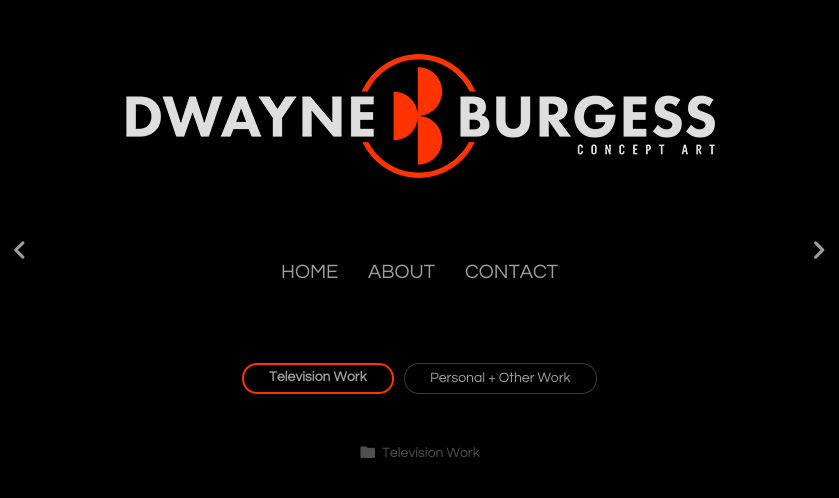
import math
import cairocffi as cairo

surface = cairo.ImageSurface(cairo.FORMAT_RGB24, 839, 498)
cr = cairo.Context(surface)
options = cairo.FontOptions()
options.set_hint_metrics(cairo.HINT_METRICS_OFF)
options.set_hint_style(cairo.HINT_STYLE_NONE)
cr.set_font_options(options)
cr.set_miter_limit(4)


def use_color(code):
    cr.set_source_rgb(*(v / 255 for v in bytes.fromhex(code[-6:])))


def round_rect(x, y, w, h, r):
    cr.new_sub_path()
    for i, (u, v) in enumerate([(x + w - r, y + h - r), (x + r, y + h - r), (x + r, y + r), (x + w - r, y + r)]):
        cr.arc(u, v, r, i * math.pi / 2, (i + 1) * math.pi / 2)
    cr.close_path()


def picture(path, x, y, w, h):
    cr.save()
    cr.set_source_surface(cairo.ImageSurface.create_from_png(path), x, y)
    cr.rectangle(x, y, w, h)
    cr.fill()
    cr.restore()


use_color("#000000")
cr.paint()
picture("img1.png", 126, 54, 589, 124)
cr.select_font_face("Questrial")
cr.set_font_size(20)
use_color("#9e9e9e")
cr.move_to(281, 278)
cr.show_text("HOME")
cr.move_to(368, 278)
cr.show_text("ABOUT")
cr.move_to(465, 278)
cr.show_text("CONTACT")
picture("img2.png", 14, 241, 11, 18)
picture("img3.png", 814, 241, 11, 18)
round_rect(243, 364, 150, 29, 14)
use_color("#ff3300")
cr.stroke()
cr.select_font_face("Questrial", cairo.FONT_SLANT_NORMAL, cairo.FONT_WEIGHT_BOLD)
cr.set_font_size(14)
use_color("#9e9e9e")
cr.move_to(269, 381)
cr.show_text("Television Work")
round_rect(404.5, 363.5, 192, 30, 14.5)
use_color("#383838")
cr.set_line_width(1)
cr.stroke()
cr.select_font_face("Questrial")
use_color("#9e9e9e")
cr.move_to(430, 382)
cr.show_text("Personal + Other Work")
picture("img4.png", 360, 446, 15, 13)
use_color("#4f4f4f")
cr.move_to(382, 457)
cr.show_text("Television Work")
surface.write_to_png("result.png")
